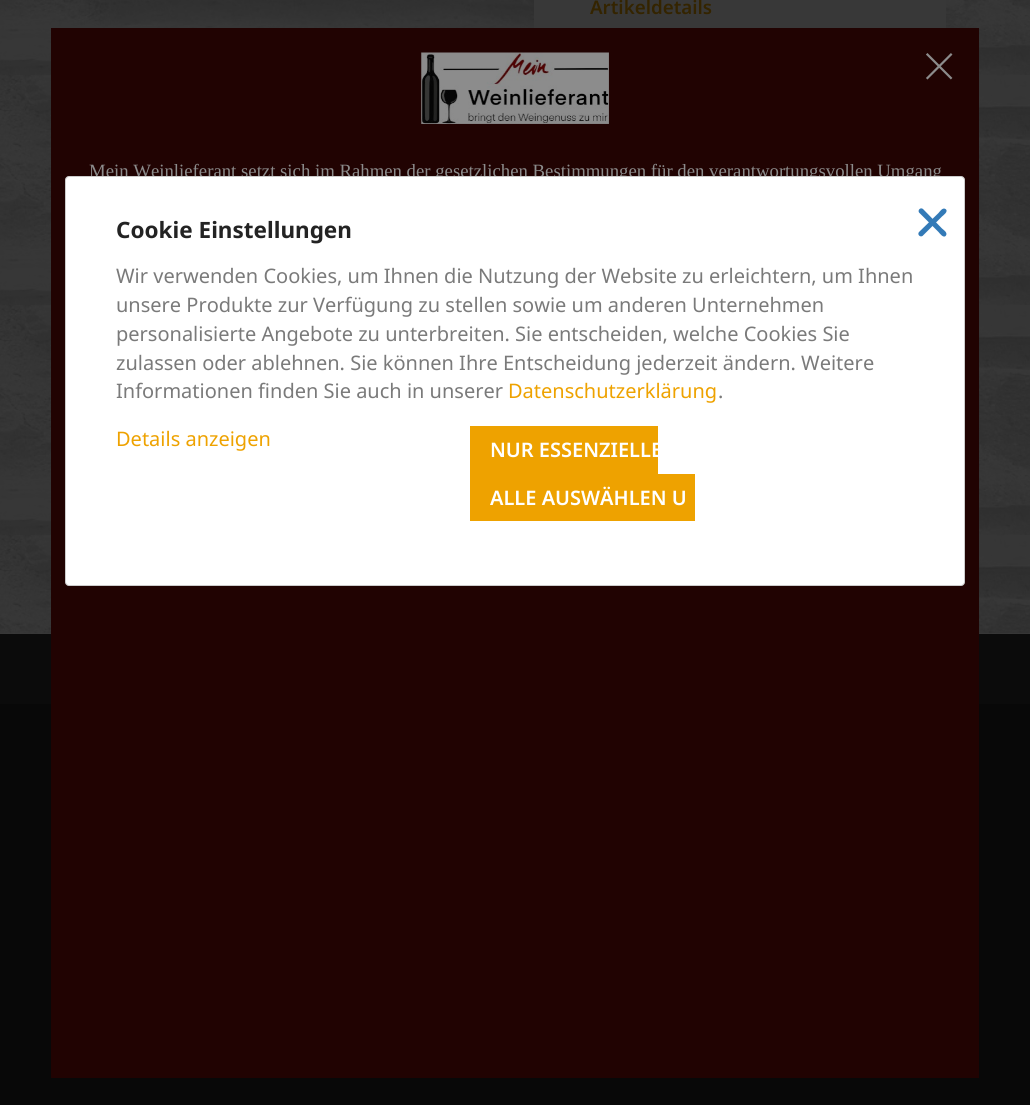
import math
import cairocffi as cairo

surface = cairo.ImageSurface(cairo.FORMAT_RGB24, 1030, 1105)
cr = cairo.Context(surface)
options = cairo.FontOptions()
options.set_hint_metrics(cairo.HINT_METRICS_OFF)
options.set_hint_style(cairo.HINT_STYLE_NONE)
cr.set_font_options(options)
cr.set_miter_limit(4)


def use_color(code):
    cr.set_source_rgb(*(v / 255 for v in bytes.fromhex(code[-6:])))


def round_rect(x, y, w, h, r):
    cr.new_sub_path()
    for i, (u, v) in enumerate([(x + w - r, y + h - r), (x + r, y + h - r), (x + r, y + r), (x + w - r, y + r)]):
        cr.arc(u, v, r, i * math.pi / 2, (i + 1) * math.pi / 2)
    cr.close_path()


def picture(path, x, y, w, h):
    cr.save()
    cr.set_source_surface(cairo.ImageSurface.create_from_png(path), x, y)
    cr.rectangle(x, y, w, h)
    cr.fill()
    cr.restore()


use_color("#383838")
cr.paint()
picture("img1.png", 0, 0, 1030, 634)
use_color("#383838")
cr.rectangle(534, 0, 412, 28)
cr.fill()
cr.select_font_face("Noto Sans SemiBold")
cr.set_font_size(18.75)
use_color("#342400")
cr.move_to(590, 14)
cr.show_text("Artikeldetails")
use_color("#0b0b0b")
cr.rectangle(0, 634, 1030, 70)
cr.fill()
use_color("#080808")
cr.rectangle(0, 704, 1030, 401)
cr.fill()
use_color("#210302")
cr.rectangle(51, 28, 928, 1050)
cr.fill()
cr.select_font_face("Liberation Serif")
use_color("#8c8c8c")
cr.move_to(89, 177)
cr.show_text("Mein Weinlieferant setzt sich im Rahmen der gesetzlichen Bestimmungen für den verantwortungsvollen Umgang")
use_color("#ffffff")
round_rect(65.5, 176.5, 899, 409, 3.5)
cr.fill_preserve()
use_color("#cccccc")
cr.set_line_width(1)
cr.stroke()
cr.select_font_face("Noto Sans", cairo.FONT_SLANT_NORMAL, cairo.FONT_WEIGHT_BOLD)
cr.set_font_size(22.5)
use_color("#232323")
cr.move_to(116, 238)
cr.show_text("Cookie Einstellungen")
cr.select_font_face("Noto Sans")
cr.set_font_size(20)
use_color("#7a7a7a")
cr.move_to(116, 283)
cr.show_text("Wir verwenden Cookies, um Ihnen die Nutzung der Website zu erleichtern, um Ihnen")
cr.move_to(116, 312)
cr.show_text("unsere Produkte zur Verfügung zu stellen sowie um anderen Unternehmen")
cr.move_to(116, 341)
cr.show_text("personalisierte Angebote zu unterbreiten. Sie entscheiden, welche Cookies Sie")
cr.move_to(116, 370)
cr.show_text("zulassen oder ablehnen. Sie können Ihre Entscheidung jederzeit ändern. Weitere")
cr.move_to(116, 398)
cr.show_text("Informationen finden Sie auch in unserer")
use_color("#eea200")
cr.move_to(508, 398)
cr.show_text("Datenschutzerklärung")
use_color("#7a7a7a")
cr.move_to(718, 398)
cr.show_text(".")
use_color("#eea200")
cr.move_to(116, 446)
cr.show_text("Details anzeigen")
cr.rectangle(470, 426, 188, 48)
cr.fill()
cr.select_font_face("Noto Sans SemiBold")
use_color("#ffffff")
cr.move_to(490, 457)
cr.show_text("NUR ESSENZIELLE")
use_color("#eea200")
cr.rectangle(470, 474, 225, 47)
cr.fill()
use_color("#ffffff")
cr.move_to(490, 505)
cr.show_text("ALLE AUSWÄHLEN U")
use_color("#337ab7")
cr.new_path()
cr.move_to(923, 209)
cr.line_to(942, 228.5)
cr.curve_to(943, 229.5, 948, 232.5, 946, 235.5)
cr.curve_to(943.5, 239, 939.5, 233, 938.5, 232)
cr.line_to(919, 212.5)
cr.curve_to(917.5, 210, 920.5, 207, 923, 209)
cr.close_path()
cr.fill()
cr.new_path()
cr.move_to(919, 232)
cr.line_to(938.5, 213)
cr.curve_to(939.5, 212, 942.5, 207, 945.5, 209)
cr.curve_to(949, 211.5, 943, 215.5, 942, 216.5)
cr.line_to(922.5, 236)
cr.curve_to(920, 237.5, 917, 234.5, 919, 232)
cr.close_path()
cr.fill()
picture("img2.png", 421, 52, 188, 72)
picture("img3.png", 926, 53, 27, 27)
surface.write_to_png("result.png")
